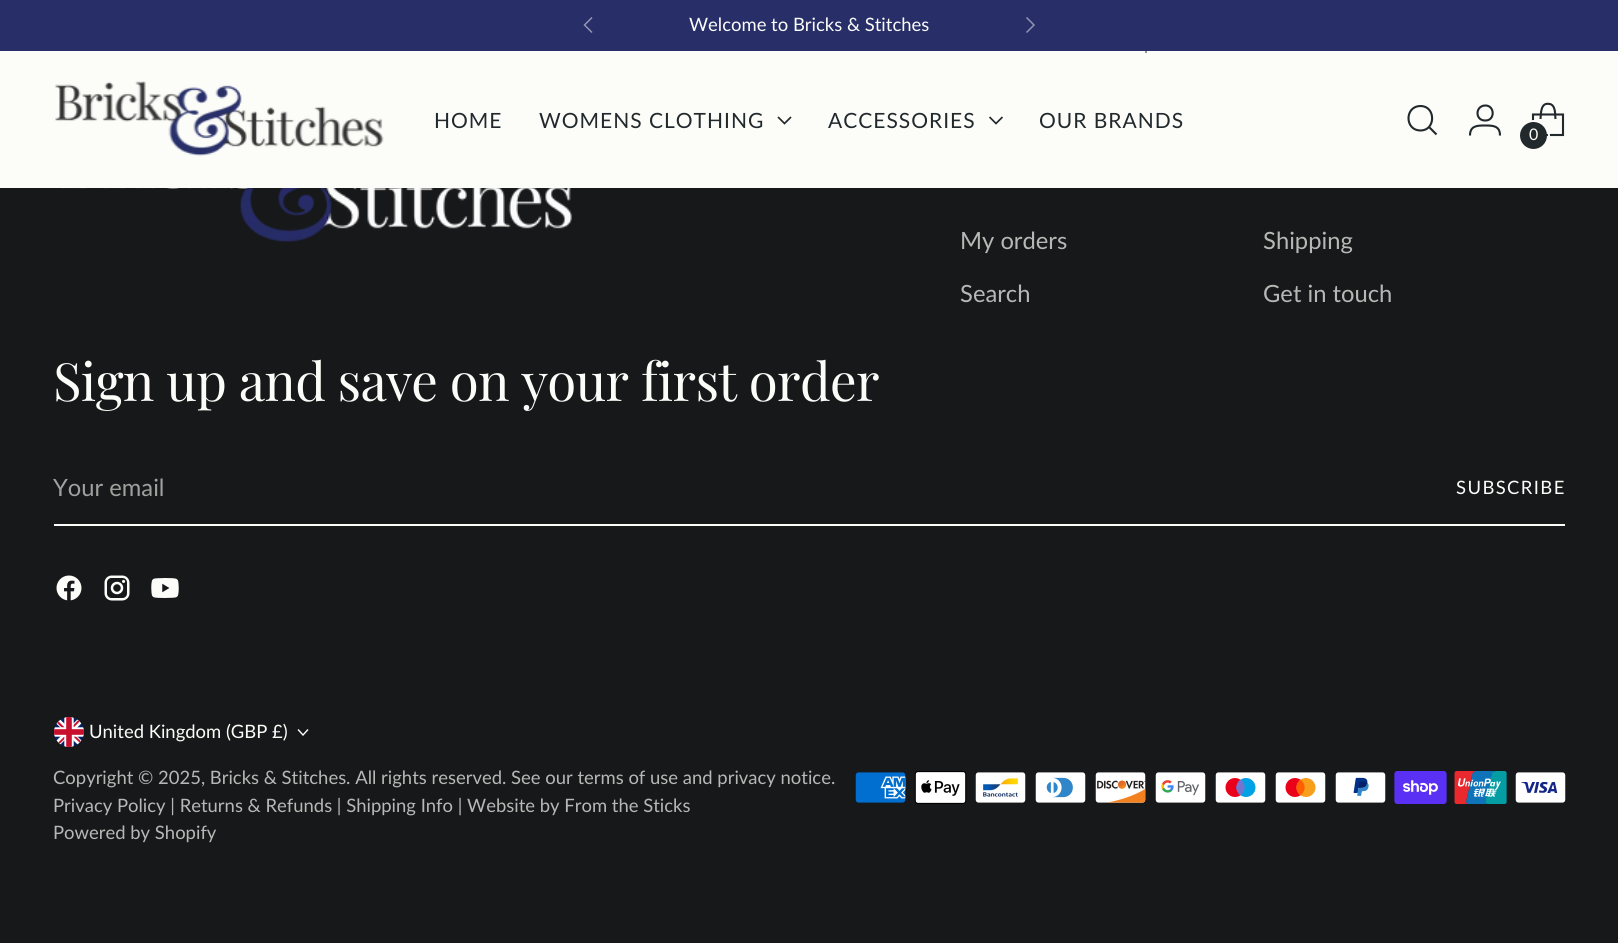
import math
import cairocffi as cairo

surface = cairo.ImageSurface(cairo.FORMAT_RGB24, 1618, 943)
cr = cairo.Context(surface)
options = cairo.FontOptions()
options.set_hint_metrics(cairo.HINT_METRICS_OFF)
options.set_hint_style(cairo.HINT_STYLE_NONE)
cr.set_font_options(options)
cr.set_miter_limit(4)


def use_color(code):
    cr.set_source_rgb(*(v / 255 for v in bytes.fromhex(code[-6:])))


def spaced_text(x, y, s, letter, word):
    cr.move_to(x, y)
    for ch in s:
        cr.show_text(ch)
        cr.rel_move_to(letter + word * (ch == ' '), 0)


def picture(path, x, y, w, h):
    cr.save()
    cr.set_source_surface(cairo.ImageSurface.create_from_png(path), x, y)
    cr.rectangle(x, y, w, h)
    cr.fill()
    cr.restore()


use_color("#171819")
cr.paint()
use_color("#272e68")
cr.rectangle(0, 0, 1618, 51)
cr.fill()
cr.new_path()
cr.move_to(592, 17.5)
cr.line_to(584.5, 25)
cr.line_to(592, 32.5)
use_color("#9295b1")
cr.set_line_width(1.5)
cr.stroke()
cr.new_path()
cr.move_to(1026.5, 32.5)
cr.line_to(1034, 25)
cr.line_to(1026.5, 17.5)
cr.stroke()
cr.select_font_face("Lato")
cr.set_font_size(18.45)
use_color("#fcfcf9")
cr.move_to(689, 31)
cr.show_text("Welcome to Bricks & Stitches")
cr.rectangle(0, 51, 1618, 137)
cr.fill()
use_color("#8f9393")
cr.rectangle(1145, 51, 2, 2)
cr.fill()
picture("img1.png", 55, 81, 329, 75)
cr.set_font_size(21)
use_color("#22292d")
spaced_text(434, 128, "HOME", 1, 0)
spaced_text(539, 128, "WOMENS CLOTHING", 1, 0)
cr.new_path()
cr.move_to(778, 117)
cr.line_to(784.5, 123.5)
cr.line_to(791, 117)
cr.set_line_width(1.7)
cr.stroke()
spaced_text(828, 128, "ACCESSORIES", 1, 0)
cr.new_path()
cr.move_to(989.5, 117)
cr.line_to(996, 123.5)
cr.line_to(1002.5, 117)
cr.stroke()
spaced_text(1039, 128, "OUR BRANDS", 1, 0)
cr.new_path()
cr.move_to(1420.5, 130.5)
cr.curve_to(1436, 130.5, 1436, 106, 1420.5, 106)
cr.curve_to(1404.5, 106, 1404.5, 130.5, 1420.5, 130.5)
cr.close_path()
cr.set_line_width(2.1)
cr.set_line_cap(cairo.LINE_CAP_ROUND)
cr.stroke()
cr.new_path()
cr.move_to(1429, 127)
cr.line_to(1436.5, 134.5)
cr.set_line_cap(cairo.LINE_CAP_BUTT)
cr.stroke()
cr.new_path()
cr.move_to(1485, 120.5)
cr.curve_to(1495.5, 121, 1495, 105, 1485, 105.5)
cr.curve_to(1475, 106, 1475, 120.5, 1485, 120.5)
cr.close_path()
cr.move_to(1470, 135.5)
cr.curve_to(1470, 125.5, 1477.5, 125.5, 1485, 125.5)
cr.curve_to(1492.5, 125.5, 1500, 125.5, 1500, 135.5)
cr.stroke()
cr.new_path()
cr.move_to(1555.5, 119)
cr.curve_to(1555, 115.5, 1555.5, 111.5, 1554, 108)
cr.curve_to(1553.5, 106, 1551.5, 104, 1549.5, 104)
cr.curve_to(1540.5, 102, 1541, 113.5, 1540.5, 119)
cr.set_line_join(cairo.LINE_JOIN_BEVEL)
cr.stroke()
cr.new_path()
cr.move_to(1563, 135)
cr.line_to(1563, 114.5)
cr.line_to(1533, 114.5)
cr.line_to(1533, 135)
cr.close_path()
cr.set_line_join(cairo.LINE_JOIN_MITER)
cr.stroke()
cr.arc(1534, 136, 15, 0, 2 * math.pi)
use_color("#fcfcf9")
cr.set_line_width(2)
cr.stroke()
use_color("#22292d")
cr.arc(1533.5, 135.5, 13.5, 0, 2 * math.pi)
cr.fill()
cr.set_font_size(16)
use_color("#fcfcf9")
cr.move_to(1529, 140)
cr.show_text("0")
picture("img2.png", 61, 188, 511, 54)
cr.set_font_size(23.75)
use_color("#b7b8b6")
cr.move_to(960, 249)
cr.show_text("My orders")
cr.move_to(960, 302)
cr.show_text("Search")
cr.move_to(1263, 249)
cr.show_text("Shipping")
cr.move_to(1263, 302)
cr.show_text("Get in touch")
cr.select_font_face("Playfair Display")
cr.set_font_size(52.75)
use_color("#fcfcf9")
spaced_text(53, 401, "Sign up and save on your first order", -0.65, 0)
cr.rectangle(54, 524, 1511, 2)
cr.fill()
cr.select_font_face("Lato")
cr.set_font_size(23.75)
use_color("#a0a19f")
cr.move_to(53, 496)
cr.show_text("Your email")
cr.set_font_size(18.45)
use_color("#fcfcf9")
spaced_text(1456, 494, "SUBSCRIBE", 1.4, 0)
picture("img3.png", 56, 575, 26, 26)
picture("img4.png", 104, 575, 26, 26)
picture("img5.png", 151, 578, 28, 20)
picture("img6.png", 54, 717, 30, 30)
cr.move_to(89, 738)
cr.show_text("United Kingdom (GBP £)")
cr.new_path()
cr.move_to(298, 729.5)
cr.line_to(303, 735)
cr.line_to(308, 729.5)
cr.set_line_width(1.4)
cr.stroke()
use_color("#b7b8b6")
cr.move_to(53, 784)
cr.show_text("Copyright © 2025, Bricks & Stitches. All rights reserved. See our terms of use and privacy notice.")
cr.move_to(53, 812)
cr.show_text("Privacy Policy | Returns & Refunds | Shipping Info | Website by From the Sticks")
cr.move_to(53, 839)
cr.show_text("Powered by Shopify")
picture("img7.png", 855, 772, 51, 31)
picture("img8.png", 914, 771, 53, 33)
picture("img9.png", 975, 772, 51, 31)
picture("img10.png", 1035, 772, 51, 31)
picture("img11.png", 1095, 772, 51, 31)
picture("img12.png", 1155, 772, 51, 31)
picture("img13.png", 1215, 772, 51, 31)
picture("img14.png", 1275, 772, 51, 31)
picture("img15.png", 1335, 772, 51, 31)
picture("img16.png", 1394, 771, 53, 33)
picture("img17.png", 1454, 771, 53, 33)
picture("img18.png", 1515, 772, 51, 31)
surface.write_to_png("result.png")
